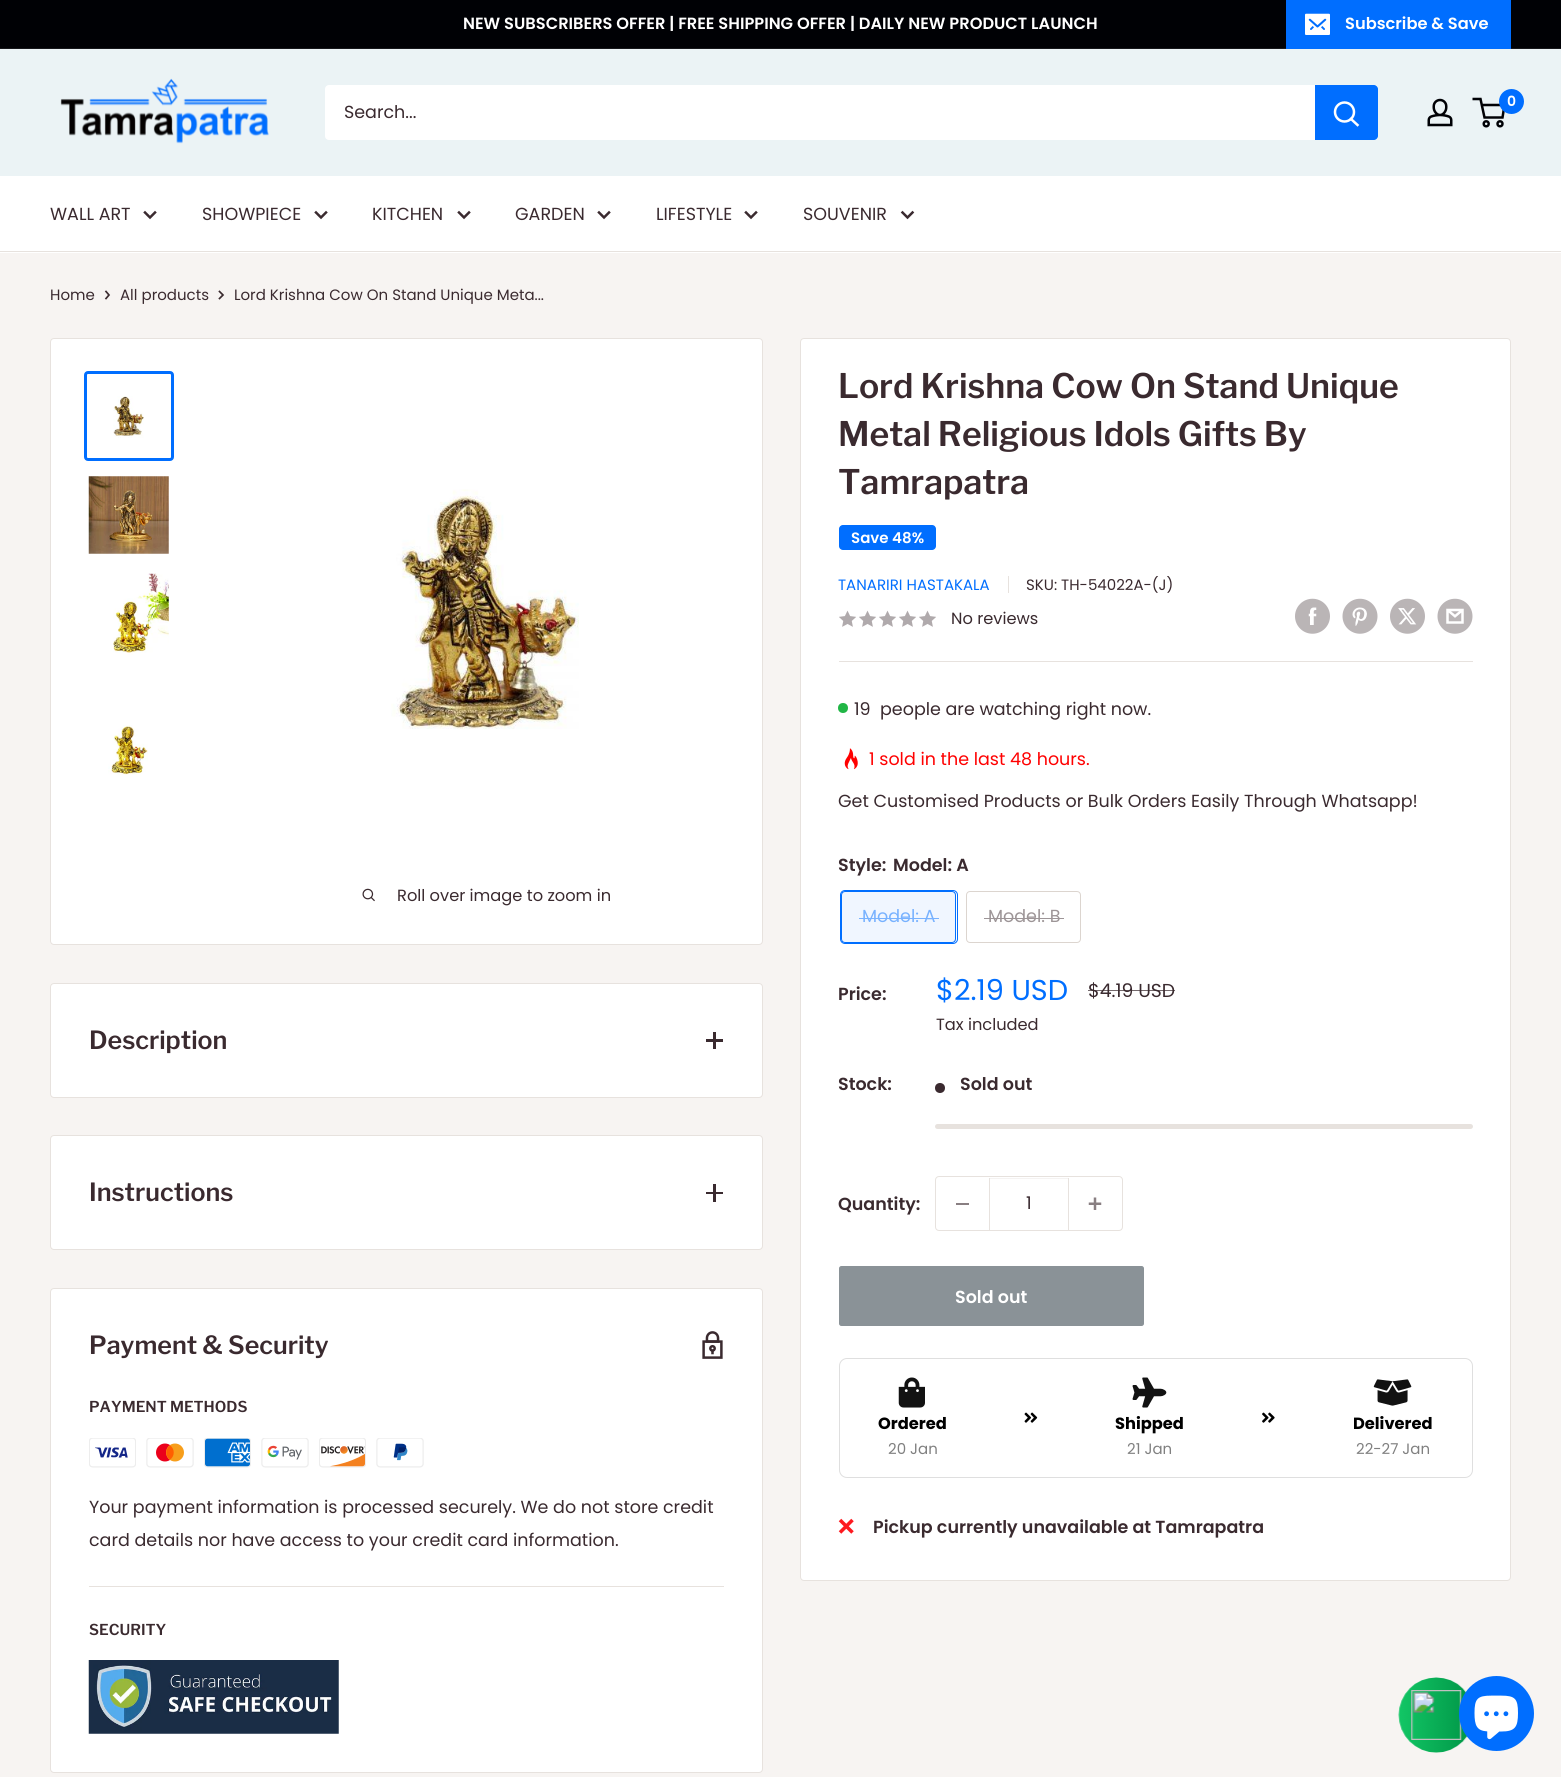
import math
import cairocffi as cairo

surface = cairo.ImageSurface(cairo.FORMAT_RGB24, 1561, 1777)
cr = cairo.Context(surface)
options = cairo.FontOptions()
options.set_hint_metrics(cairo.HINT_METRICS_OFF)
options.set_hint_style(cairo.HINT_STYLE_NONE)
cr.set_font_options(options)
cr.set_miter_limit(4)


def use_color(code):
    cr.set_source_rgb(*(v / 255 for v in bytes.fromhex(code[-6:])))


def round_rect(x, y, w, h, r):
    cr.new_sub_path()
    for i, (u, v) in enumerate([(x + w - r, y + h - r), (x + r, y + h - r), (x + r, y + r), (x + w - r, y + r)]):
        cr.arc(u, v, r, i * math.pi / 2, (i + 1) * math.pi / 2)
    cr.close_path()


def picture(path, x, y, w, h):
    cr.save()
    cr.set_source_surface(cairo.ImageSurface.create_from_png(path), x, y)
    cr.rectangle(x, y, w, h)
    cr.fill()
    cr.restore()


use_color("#f7f4f2")
cr.paint()
use_color("#000105")
cr.rectangle(0, 0, 1561, 48)
cr.fill()
use_color("#16171b")
cr.rectangle(0, 48, 1561, 1)
cr.fill()
cr.select_font_face("Poppins SemiBold")
cr.set_font_size(16.25)
use_color("#ffffff")
cr.move_to(463, 29)
cr.show_text("NEW SUBSCRIBERS OFFER | FREE SHIPPING OFFER | DAILY NEW PRODUCT LAUNCH")
use_color("#006eff")
cr.new_path()
cr.move_to(1286, 1)
cr.line_to(1286, 49)
cr.line_to(1511, 49)
cr.line_to(1511, 48)
cr.line_to(1286, 48)
cr.close_path()
cr.fill()
cr.rectangle(1286, 0, 225, 48)
cr.fill()
picture("img1.png", 1305, 13, 25, 22)
use_color("#ffffff")
cr.move_to(1345, 29)
cr.show_text("Subscribe & Save")
use_color("#ebf3f5")
cr.rectangle(0, 49, 1561, 127)
cr.fill()
picture("img2.png", 60, 78, 209, 66)
picture("img3.png", 1427, 98, 26, 29)
cr.arc(1486.2, 123.8, 2.5, 0, 2 * math.pi)
use_color("#000105")
cr.set_line_width(2.5)
cr.stroke()
cr.arc(1500, 123.8, 2.5, 0, 2 * math.pi)
cr.stroke()
cr.new_path()
cr.move_to(1481.5, 105)
cr.line_to(1504.5, 105)
cr.line_to(1502.5, 117.5)
cr.line_to(1484.5, 117.5)
cr.line_to(1480.5, 99)
cr.line_to(1472.5, 99)
cr.stroke()
use_color("#006eff")
cr.arc(1511.5, 101.5, 12.5, 0, 2 * math.pi)
cr.fill()
cr.set_font_size(14)
use_color("#ffffff")
cr.move_to(1507, 106)
cr.show_text("0")
round_rect(325, 85, 1053, 55, 4)
cr.fill()
cr.select_font_face("Poppins")
cr.set_font_size(17.5)
use_color("#3a2a2f")
cr.move_to(344, 118)
cr.show_text("Search...")
use_color("#006eff")
cr.new_path()
cr.move_to(1315, 85)
cr.line_to(1374, 85)
cr.curve_to(1376, 85, 1378, 87, 1378, 89)
cr.line_to(1378, 136)
cr.curve_to(1378, 138, 1376, 140, 1374, 140)
cr.line_to(1315, 140)
cr.close_path()
cr.fill()
cr.new_path()
cr.move_to(1357.5, 125)
cr.line_to(1351, 119)
use_color("#ffffff")
cr.set_line_cap(cairo.LINE_CAP_SQUARE)
cr.stroke()
cr.arc(1344.5, 112, 9.5, 0, 2 * math.pi)
cr.set_line_cap(cairo.LINE_CAP_BUTT)
cr.stroke()
cr.rectangle(0, 176, 1561, 77)
cr.fill()
use_color("#e7e2de")
cr.rectangle(0, 251, 1561, 1)
cr.fill()
use_color("#3a2a2f")
cr.move_to(50, 220)
cr.show_text("WALL ART")
cr.new_path()
cr.move_to(155, 212.5)
cr.line_to(150, 217.5)
cr.line_to(145, 212.5)
cr.set_line_cap(cairo.LINE_CAP_SQUARE)
cr.stroke()
cr.move_to(202, 220)
cr.show_text("SHOWPIECE")
cr.new_path()
cr.move_to(326, 212.5)
cr.line_to(321, 217.5)
cr.line_to(316, 212.5)
cr.stroke()
cr.move_to(372, 220)
cr.show_text("KITCHEN")
cr.new_path()
cr.move_to(469, 212.5)
cr.line_to(464, 217.5)
cr.line_to(459, 212.5)
cr.stroke()
cr.move_to(515, 220)
cr.show_text("GARDEN")
cr.new_path()
cr.move_to(609, 212.5)
cr.line_to(604, 217.5)
cr.line_to(599, 212.5)
cr.stroke()
cr.move_to(656, 220)
cr.show_text("LIFESTYLE")
cr.new_path()
cr.move_to(756, 212.5)
cr.line_to(751, 217.5)
cr.line_to(746, 212.5)
cr.stroke()
cr.move_to(803, 220)
cr.show_text("SOUVENIR")
cr.new_path()
cr.move_to(912.5, 212.5)
cr.line_to(907.5, 217.5)
cr.line_to(902.5, 212.5)
cr.stroke()
cr.set_font_size(15)
cr.move_to(50, 300)
cr.show_text("Home")
cr.new_path()
cr.move_to(106, 291.5)
cr.line_to(109, 295)
cr.line_to(106, 298.5)
cr.set_line_width(1.7)
cr.stroke()
cr.move_to(120, 300)
cr.show_text("All products")
cr.new_path()
cr.move_to(219.5, 291.5)
cr.line_to(223, 295)
cr.line_to(219.5, 298.5)
cr.stroke()
cr.move_to(234, 300)
cr.show_text("Lord Krishna Cow On Stand Unique Meta...")
use_color("#ffffff")
round_rect(50.5, 338.5, 712, 606, 3.5)
cr.fill_preserve()
use_color("#e7e2de")
cr.set_line_width(1)
cr.set_line_cap(cairo.LINE_CAP_BUTT)
cr.stroke()
round_rect(85.5, 372.5, 87, 87, 2.5)
use_color("#006eff")
cr.set_line_width(3)
cr.stroke()
picture("img4.png", 113, 396, 31, 42)
picture("img5.png", 88, 476, 81, 78)
picture("img6.png", 113, 573, 56, 82)
picture("img7.png", 108, 725, 40, 50)
picture("img8.png", 391, 489, 188, 241)
picture("img9.png", 362, 888, 13, 14)
cr.set_font_size(16.25)
use_color("#3a2a2f")
cr.move_to(397, 901)
cr.show_text("Roll over image to zoom in")
use_color("#ffffff")
round_rect(800.5, 338.5, 710, 1242, 3.5)
cr.fill_preserve()
use_color("#e7e2de")
cr.set_line_width(1)
cr.stroke()
cr.select_font_face("Libre Franklin SemiBold")
cr.set_font_size(33.75)
use_color("#3a2a2f")
cr.move_to(838, 398)
cr.show_text("Lord Krishna Cow On Stand Unique")
cr.move_to(838, 446)
cr.show_text("Metal Religious Idols Gifts By")
cr.move_to(838, 494)
cr.show_text("Tamrapatra")
use_color("#006eff")
round_rect(839, 525, 97, 25, 4)
cr.fill()
cr.select_font_face("Poppins SemiBold")
cr.set_font_size(15)
use_color("#ffffff")
cr.move_to(851, 543)
cr.show_text("Save 48%")
cr.select_font_face("Poppins")
use_color("#006eff")
cr.move_to(838, 590)
cr.show_text("TANARIRI HASTAKALA")
use_color("#e7e2de")
cr.rectangle(1008, 576, 1, 17)
cr.fill()
use_color("#3a2a2f")
cr.move_to(1026, 590)
cr.show_text("SKU: TH-54022A-(J)")
picture("img10.png", 839, 610, 17, 17)
picture("img10.png", 859, 610, 17, 17)
picture("img10.png", 879, 610, 17, 17)
picture("img10.png", 899, 610, 17, 17)
picture("img10.png", 919, 610, 17, 17)
cr.set_font_size(16.25)
cr.move_to(951, 624)
cr.show_text("No reviews")
picture("img11.png", 1295, 598, 35, 36)
picture("img12.png", 1342, 598, 36, 36)
picture("img13.png", 1390, 598, 35, 36)
picture("img14.png", 1437, 598, 36, 36)
use_color("#e7e2de")
cr.rectangle(839, 661, 634, 1)
cr.fill()
use_color("#21b646")
cr.arc(843, 708, 5, 0, 2 * math.pi)
cr.fill()
cr.set_font_size(17.5)
use_color("#3a2a2f")
cr.move_to(854, 715)
cr.show_text("19")
cr.move_to(880, 715)
cr.show_text("people are watching right now.")
picture("img15.png", 844, 748, 14, 22)
use_color("#ff0000")
cr.move_to(869, 765)
cr.show_text("1 sold in the last 48 hours.")
use_color("#3a2a2f")
cr.move_to(838, 807)
cr.show_text("Get Customised Products or Bulk Orders Easily Through Whatsapp!")
cr.select_font_face("Poppins SemiBold")
cr.move_to(838, 871)
cr.show_text("Style:")
cr.move_to(893, 871)
cr.show_text("Model: A")
round_rect(840.5, 890.5, 117, 53, 4.5)
use_color("#006eff")
cr.stroke()
cr.set_source_rgba(0, 0.431, 1, 0.06)
cr.rectangle(841, 891, 115, 52)
cr.fill()
round_rect(841.5, 891.5, 114, 51, 3.5)
use_color("#006eff")
cr.stroke()
cr.select_font_face("Poppins")
use_color("#78b2ff")
cr.move_to(862, 922)
cr.show_text("Model: A")
cr.rectangle(859, 918, 80, 1)
cr.fill()
round_rect(966.5, 891.5, 114, 51, 3.5)
use_color("#dcd5cf")
cr.stroke()
use_color("#9d9597")
cr.move_to(988, 922)
cr.show_text("Model: B")
cr.rectangle(984, 918, 80, 1)
cr.fill()
cr.select_font_face("Poppins SemiBold")
use_color("#3a2a2f")
cr.move_to(838, 1000)
cr.show_text("Price:")
cr.select_font_face("Poppins")
cr.set_font_size(28.75)
use_color("#006eff")
cr.move_to(936, 1000)
cr.show_text("$2.19 USD")
cr.set_font_size(18.75)
use_color("#3a2a2f")
cr.move_to(1088, 997)
cr.show_text("$4.19 USD")
cr.set_source_rgba(0.227, 0.165, 0.184, 0.7)
cr.rectangle(1088, 990, 87, 1)
cr.fill()
cr.set_font_size(16.25)
use_color("#3a2a2f")
cr.move_to(936, 1030)
cr.show_text("Tax included")
cr.select_font_face("Poppins SemiBold")
cr.set_font_size(17.5)
cr.move_to(838, 1090)
cr.show_text("Stock:")
cr.new_path()
cr.arc(940, 1088, 5, 0, 2 * math.pi)
cr.fill()
cr.move_to(960, 1090)
cr.show_text("Sold out")
use_color("#e7e2de")
round_rect(935, 1124, 538, 5, 2.5)
cr.fill()
use_color("#3a2a2f")
cr.move_to(838, 1210)
cr.show_text("Quantity:")
round_rect(935.5, 1176.5, 187, 54, 3.5)
use_color("#e7e2de")
cr.stroke()
use_color("#897f82")
cr.rectangle(956, 1203, 13, 2)
cr.fill()
use_color("#f5f3f2")
cr.rectangle(990, 1178, 78, 1)
cr.fill()
use_color("#e7e2de")
cr.rectangle(1068, 1178, 1, 52)
cr.fill()
cr.rectangle(989, 1178, 1, 52)
cr.fill()
cr.select_font_face("Poppins")
use_color("#3a2a2f")
cr.move_to(1026, 1209)
cr.show_text("1")
picture("img16.png", 1088, 1197, 14, 13)
use_color("#8a9297")
round_rect(839.5, 1266.5, 304, 59, 2)
cr.fill_preserve()
cr.stroke()
cr.select_font_face("Poppins SemiBold")
use_color("#ffffff")
cr.move_to(955, 1303)
cr.show_text("Sold out")
round_rect(839.5, 1358.5, 633, 119, 7.5)
use_color("#dfdfdf")
cr.stroke()
picture("img17.png", 898, 1377, 27, 31)
cr.select_font_face("Poppins", cairo.FONT_SLANT_NORMAL, cairo.FONT_WEIGHT_BOLD)
cr.set_font_size(16.25)
use_color("#000000")
cr.move_to(878, 1429)
cr.show_text("Ordered")
cr.select_font_face("Poppins")
cr.set_font_size(15)
use_color("#808080")
cr.move_to(888, 1454)
cr.show_text("20 Jan")
picture("img18.png", 1024, 1412, 14, 11)
picture("img19.png", 1132, 1377, 35, 31)
cr.select_font_face("Poppins", cairo.FONT_SLANT_NORMAL, cairo.FONT_WEIGHT_BOLD)
cr.set_font_size(16.25)
use_color("#000000")
cr.move_to(1115, 1429)
cr.show_text("Shipped")
cr.select_font_face("Poppins")
cr.set_font_size(15)
use_color("#808080")
cr.move_to(1127, 1454)
cr.show_text("21 Jan")
picture("img20.png", 1262, 1412, 13, 11)
picture("img21.png", 1373, 1379, 39, 27)
cr.select_font_face("Poppins", cairo.FONT_SLANT_NORMAL, cairo.FONT_WEIGHT_BOLD)
cr.set_font_size(16.25)
use_color("#000000")
cr.move_to(1353, 1429)
cr.show_text("Delivered")
cr.select_font_face("Poppins")
cr.set_font_size(15)
use_color("#808080")
cr.move_to(1356, 1454)
cr.show_text("22-27 Jan")
picture("img22.png", 838, 1518, 16, 16)
cr.select_font_face("Poppins SemiBold")
cr.set_font_size(17.5)
use_color("#3a2a2f")
cr.move_to(873, 1533)
cr.show_text("Pickup currently unavailable at Tamrapatra")
use_color("#ffffff")
round_rect(50.5, 983.5, 712, 114, 3.5)
cr.fill_preserve()
use_color("#e7e2de")
cr.stroke()
cr.select_font_face("Libre Franklin SemiBold")
cr.set_font_size(25)
use_color("#3a2a2f")
cr.move_to(89, 1049)
cr.show_text("Description")
cr.rectangle(713, 1032, 3, 17)
cr.fill()
cr.rectangle(706, 1039, 17, 3)
cr.fill()
use_color("#ffffff")
round_rect(50.5, 1135.5, 712, 114, 3.5)
cr.fill_preserve()
use_color("#e7e2de")
cr.stroke()
use_color("#3a2a2f")
cr.move_to(89, 1201)
cr.show_text("Instructions")
cr.rectangle(713, 1184, 3, 18)
cr.fill()
cr.rectangle(706, 1192, 17, 2)
cr.fill()
use_color("#ffffff")
round_rect(50.5, 1288.5, 712, 484, 3.5)
cr.fill_preserve()
use_color("#e7e2de")
cr.stroke()
use_color("#3a2a2f")
cr.move_to(89, 1354)
cr.show_text("Payment & Security")
picture("img23.png", 702, 1331, 21, 28)
cr.set_font_size(15)
cr.move_to(89, 1412)
cr.show_text("PAYMENT METHODS")
picture("img24.png", 89, 1438, 47, 30)
picture("img25.png", 146, 1438, 48, 30)
picture("img26.png", 204, 1438, 47, 30)
picture("img27.png", 261, 1438, 48, 30)
picture("img28.png", 319, 1438, 47, 30)
picture("img29.png", 376, 1438, 48, 30)
cr.select_font_face("Poppins")
cr.set_font_size(17.5)
cr.move_to(89, 1513)
cr.show_text("Your payment information is processed securely. We do not store credit")
cr.move_to(89, 1546)
cr.show_text("card details nor have access to your credit card information.")
use_color("#e7e2de")
cr.rectangle(89, 1586, 635, 1)
cr.fill()
cr.select_font_face("Libre Franklin SemiBold")
cr.set_font_size(15)
use_color("#3a2a2f")
cr.move_to(89, 1635)
cr.show_text("SECURITY")
picture("img30.png", 88, 1660, 251, 74)
picture("img31.png", 1398, 1677, 70, 76)
use_color("#006eff")
cr.arc(1496.5, 1713.5, 37.5, 0, 2 * math.pi)
cr.fill()
picture("img32.png", 1474, 1695, 44, 45)
surface.write_to_png("result.png")
